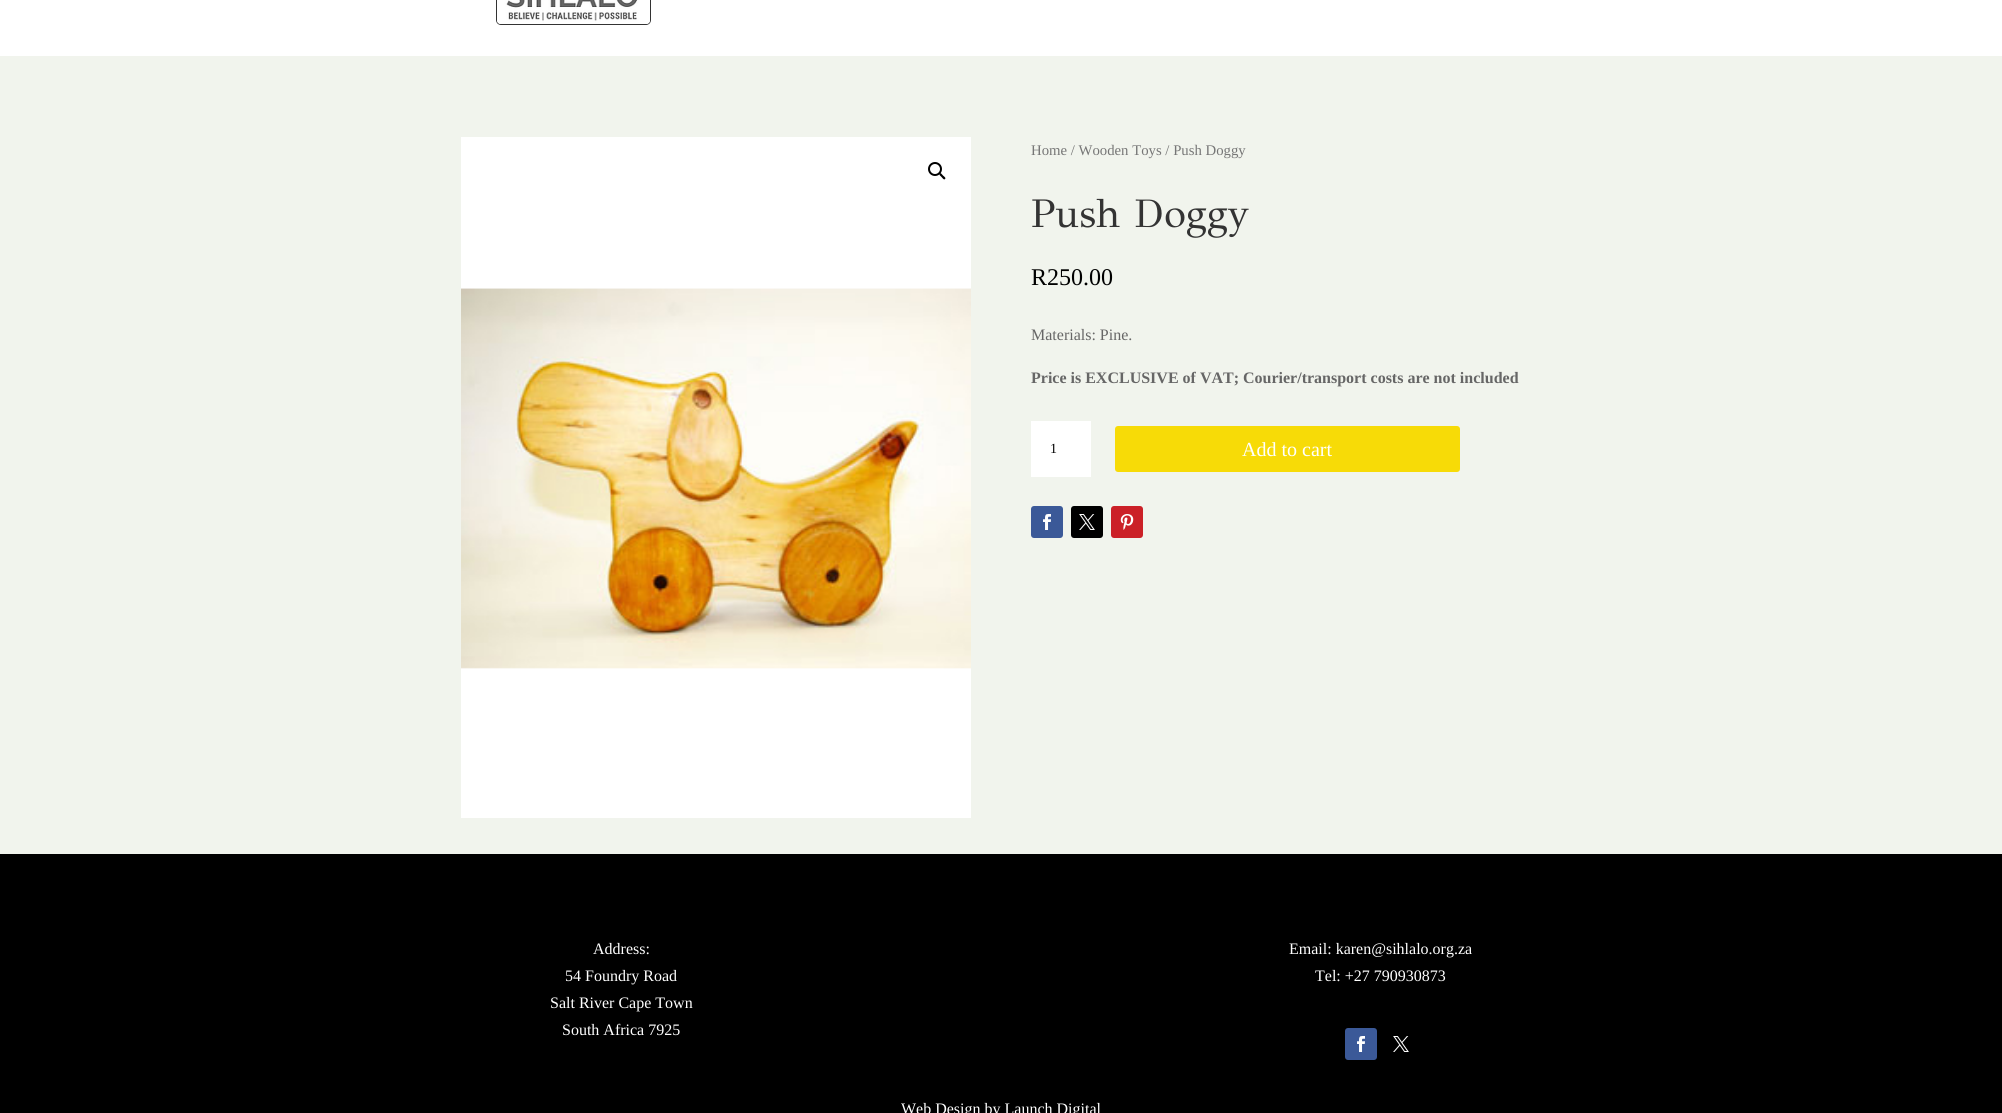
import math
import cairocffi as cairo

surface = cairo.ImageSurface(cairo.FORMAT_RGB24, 2002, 1113)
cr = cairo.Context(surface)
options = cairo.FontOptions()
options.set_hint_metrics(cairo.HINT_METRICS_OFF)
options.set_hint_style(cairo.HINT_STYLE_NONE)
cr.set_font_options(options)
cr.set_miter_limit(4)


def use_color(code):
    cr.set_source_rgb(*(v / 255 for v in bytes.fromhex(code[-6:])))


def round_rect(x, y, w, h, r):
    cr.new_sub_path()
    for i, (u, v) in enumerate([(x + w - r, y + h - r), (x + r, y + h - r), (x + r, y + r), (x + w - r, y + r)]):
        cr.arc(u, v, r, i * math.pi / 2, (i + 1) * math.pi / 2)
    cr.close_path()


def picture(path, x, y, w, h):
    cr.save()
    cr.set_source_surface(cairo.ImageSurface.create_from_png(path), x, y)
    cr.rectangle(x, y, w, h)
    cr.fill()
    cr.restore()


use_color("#ffffff")
cr.paint()
round_rect(496.5, -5.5, 154, 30, 4.5)
use_color("#333333")
cr.set_line_width(1)
cr.stroke()
picture("img1.png", 497, 0, 153, 24)
use_color("#f1f4ed")
cr.rectangle(0, 56, 2002, 798)
cr.fill()
picture("img2.png", 461, 137, 510, 681)
cr.arc(935, 169, 6, 0, 2 * math.pi)
use_color("#000000")
cr.set_line_width(2)
cr.stroke()
cr.new_path()
cr.move_to(939.5, 173.5)
cr.curve_to(940.5, 172, 942.5, 175, 943, 175.5)
cr.curve_to(943.5, 176, 946.5, 178, 945, 179)
cr.curve_to(944, 180.5, 942, 177.5, 941.5, 177)
cr.curve_to(941, 176.5, 938.5, 174.5, 939.5, 173.5)
cr.close_path()
cr.fill()
cr.select_font_face("Liberation Serif")
cr.set_font_size(14.75)
use_color("#767676")
cr.move_to(1031, 155)
cr.show_text("Home / Wooden Toys / Push Doggy")
cr.select_font_face("GFS Didot")
cr.set_font_size(40)
use_color("#333333")
cr.move_to(1031, 227)
cr.show_text("Push Doggy")
cr.select_font_face("Liberation Serif")
cr.set_font_size(24)
use_color("#000000")
cr.move_to(1031, 285)
cr.show_text("R250.00")
cr.set_font_size(16)
use_color("#666666")
cr.move_to(1031, 340)
cr.show_text("Materials: Pine.")
cr.select_font_face("Liberation Serif", cairo.FONT_SLANT_NORMAL, cairo.FONT_WEIGHT_BOLD)
cr.move_to(1031, 383)
cr.show_text("Price is EXCLUSIVE of VAT; Courier/transport costs are not included")
use_color("#ffffff")
cr.rectangle(1031, 421, 60, 56)
cr.fill()
cr.select_font_face("Liberation Serif")
cr.set_font_size(14)
use_color("#000000")
cr.move_to(1050, 453)
cr.show_text("1")
use_color("#f7db07")
round_rect(1115, 426, 345, 46, 3)
cr.fill()
cr.set_font_size(20)
use_color("#ffffff")
cr.move_to(1242, 456)
cr.show_text("Add to cart")
use_color("#3b5998")
round_rect(1031, 506, 32, 32, 3)
cr.fill()
picture("img3.png", 1043, 514, 8, 16)
use_color("#000000")
round_rect(1071, 506, 32, 32, 3)
cr.fill()
picture("img4.png", 1079, 514, 16, 16)
use_color("#cb2027")
round_rect(1111, 506, 32, 32, 3)
cr.fill()
picture("img5.png", 1120, 514, 14, 16)
use_color("#000000")
cr.rectangle(0, 854, 2002, 259)
cr.fill()
cr.set_font_size(16)
use_color("#ffffff")
cr.move_to(593, 954)
cr.show_text("Address:")
cr.move_to(565, 981)
cr.show_text("54 Foundry Road")
cr.move_to(550, 1008)
cr.show_text("Salt River Cape Town")
cr.move_to(562, 1035)
cr.show_text("South Africa 7925")
cr.move_to(1289, 954)
cr.show_text("Email: karen@sihlalo.org.za")
cr.move_to(1315, 981)
cr.show_text("Tel: +27 790930873")
use_color("#3b5998")
round_rect(1345, 1028, 32, 32, 3)
cr.fill()
picture("img3.png", 1357, 1036, 8, 16)
picture("img4.png", 1393, 1036, 16, 16)
use_color("#ffffff")
cr.move_to(901, 1114)
cr.show_text("Web Design by Launch Digital")
surface.write_to_png("result.png")
